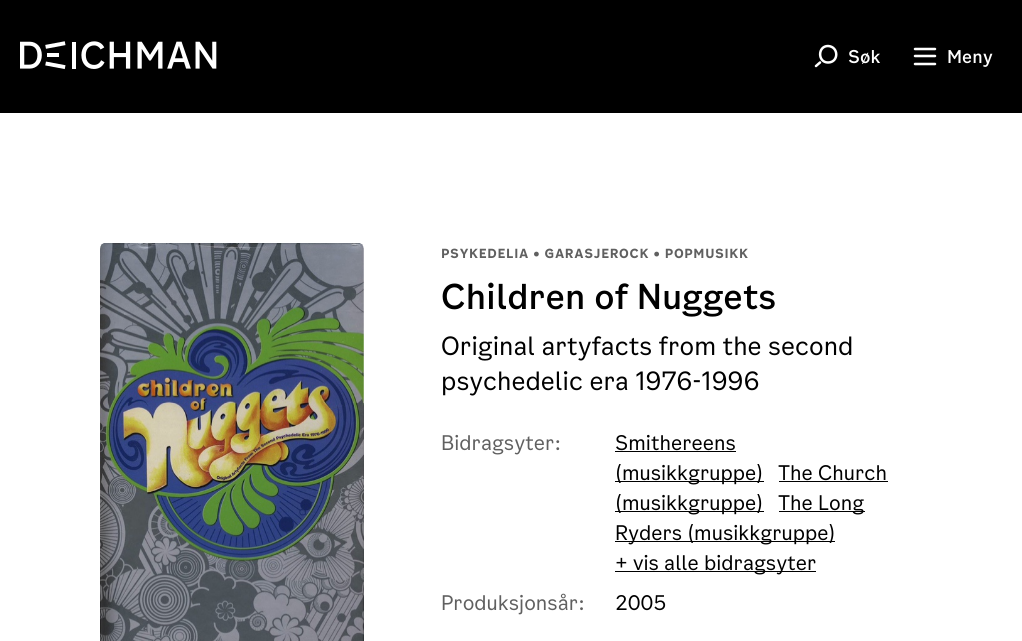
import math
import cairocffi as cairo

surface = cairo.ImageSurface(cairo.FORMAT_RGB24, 1022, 641)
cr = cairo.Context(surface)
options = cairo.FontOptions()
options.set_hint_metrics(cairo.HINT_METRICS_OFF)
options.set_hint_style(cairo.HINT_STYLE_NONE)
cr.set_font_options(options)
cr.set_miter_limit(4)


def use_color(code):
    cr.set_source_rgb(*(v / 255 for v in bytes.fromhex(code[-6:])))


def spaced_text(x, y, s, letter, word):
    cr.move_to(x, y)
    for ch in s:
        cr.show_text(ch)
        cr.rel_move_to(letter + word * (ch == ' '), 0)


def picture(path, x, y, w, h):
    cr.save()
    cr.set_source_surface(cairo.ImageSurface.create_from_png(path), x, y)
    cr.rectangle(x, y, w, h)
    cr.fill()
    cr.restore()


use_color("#ffffff")
cr.paint()
use_color("#000000")
cr.rectangle(0, 0, 1022, 113)
cr.fill()
picture("img1.png", 20, 41, 46, 29)
picture("img2.png", 72, 41, 145, 28)
cr.new_path()
cr.move_to(828, 62.5)
cr.curve_to(839, 62.5, 839, 46.5, 828, 46)
cr.curve_to(817.5, 46, 817.5, 62.5, 828, 62.5)
cr.close_path()
cr.move_to(816, 66)
cr.line_to(820, 62.5)
use_color("#ffffff")
cr.set_line_width(2.5)
cr.set_line_cap(cairo.LINE_CAP_ROUND)
cr.set_line_join(cairo.LINE_JOIN_ROUND)
cr.stroke()
cr.select_font_face("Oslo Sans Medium")
cr.set_font_size(17.5)
cr.move_to(848, 63)
cr.show_text("Søk")
cr.new_path()
cr.move_to(915, 64)
cr.line_to(935, 64)
cr.move_to(915, 56)
cr.line_to(935, 56)
cr.move_to(915, 49)
cr.line_to(935, 49)
cr.set_line_join(cairo.LINE_JOIN_MITER)
cr.stroke()
cr.move_to(947, 63)
cr.show_text("Meny")
picture("img3.png", 100, 243, 264, 398)
cr.select_font_face("Oslo Sans", cairo.FONT_SLANT_NORMAL, cairo.FONT_WEIGHT_BOLD)
cr.set_font_size(12.5)
use_color("#606060")
spaced_text(441, 258, "PSYKEDELIA • GARASJEROCK • POPMUSIKK", 0.65, 0)
cr.select_font_face("Oslo Sans Medium")
cr.set_font_size(34)
use_color("#000000")
cr.move_to(441, 309)
cr.show_text("Children of Nuggets")
cr.select_font_face("Oslo Sans")
cr.set_font_size(25)
cr.move_to(441, 355)
cr.show_text("Original artyfacts from the second")
cr.select_font_face("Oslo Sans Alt")
cr.move_to(441, 390)
cr.show_text("psychedelic era 1976-1996")
cr.select_font_face("Oslo Sans")
cr.set_font_size(20)
use_color("#606060")
cr.move_to(441, 450)
cr.show_text("Bidragsyter:")
use_color("#000000")
cr.move_to(615, 450)
cr.show_text("Smithereens")
cr.rectangle(615, 451, 121, 1)
cr.fill()
cr.rectangle(615, 481, 149, 1)
cr.fill()
cr.move_to(615, 480)
cr.show_text("(musikkgruppe)")
cr.move_to(778, 480)
cr.show_text("The Church")
cr.rectangle(779, 481, 109, 1)
cr.fill()
cr.rectangle(615, 511, 149, 1)
cr.fill()
cr.move_to(615, 510)
cr.show_text("(musikkgruppe)")
cr.rectangle(779, 511, 86, 1)
cr.fill()
cr.move_to(778, 510)
cr.show_text("The Long")
cr.rectangle(615, 541, 220, 1)
cr.fill()
cr.move_to(615, 540)
cr.show_text("Ryders (musikkgruppe)")
cr.rectangle(615, 571, 201, 1)
cr.fill()
cr.move_to(615, 570)
cr.show_text("+ vis alle bidragsyter")
use_color("#606060")
cr.move_to(441, 610)
cr.show_text("Produksjonsår:")
use_color("#000000")
cr.move_to(615, 610)
cr.show_text("2005")
surface.write_to_png("result.png")
